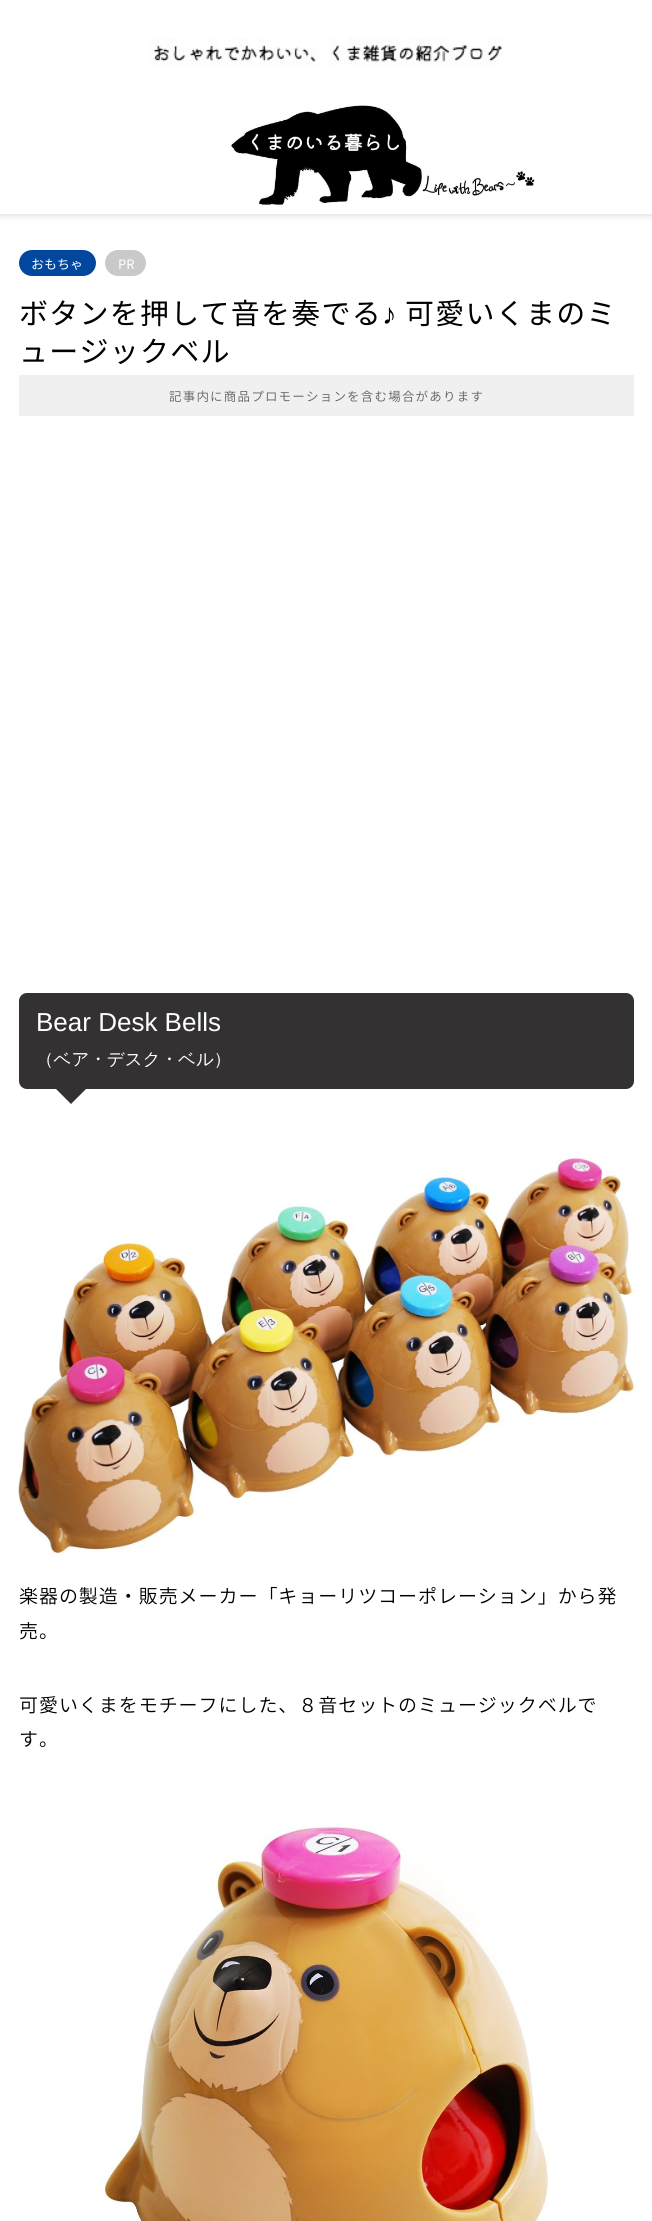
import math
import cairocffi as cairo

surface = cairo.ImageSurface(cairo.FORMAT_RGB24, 652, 2221)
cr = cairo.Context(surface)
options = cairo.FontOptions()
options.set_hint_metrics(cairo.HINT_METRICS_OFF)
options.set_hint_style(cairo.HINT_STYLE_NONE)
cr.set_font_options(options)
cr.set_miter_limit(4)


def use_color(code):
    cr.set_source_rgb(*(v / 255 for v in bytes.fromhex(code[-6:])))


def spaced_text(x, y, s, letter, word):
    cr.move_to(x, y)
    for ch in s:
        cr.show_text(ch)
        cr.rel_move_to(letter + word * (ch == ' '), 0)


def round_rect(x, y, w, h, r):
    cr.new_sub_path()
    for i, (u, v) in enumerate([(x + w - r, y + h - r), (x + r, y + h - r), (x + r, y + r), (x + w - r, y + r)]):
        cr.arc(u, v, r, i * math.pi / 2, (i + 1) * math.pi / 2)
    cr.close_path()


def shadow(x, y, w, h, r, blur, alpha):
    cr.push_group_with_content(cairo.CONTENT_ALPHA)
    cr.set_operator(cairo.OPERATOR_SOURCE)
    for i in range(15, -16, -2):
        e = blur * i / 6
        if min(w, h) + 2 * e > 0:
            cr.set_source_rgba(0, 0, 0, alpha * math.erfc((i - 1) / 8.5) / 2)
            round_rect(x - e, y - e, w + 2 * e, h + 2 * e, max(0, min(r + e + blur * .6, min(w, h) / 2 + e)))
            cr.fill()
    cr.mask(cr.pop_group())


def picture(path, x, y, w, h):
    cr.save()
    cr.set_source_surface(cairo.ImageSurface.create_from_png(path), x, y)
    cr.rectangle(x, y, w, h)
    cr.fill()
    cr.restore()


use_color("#ffffff")
cr.paint()
cr.save()
cr.set_fill_rule(cairo.FILL_RULE_EVEN_ODD)
cr.new_path()
cr.move_to(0, 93)
cr.line_to(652, 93)
cr.line_to(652, 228)
cr.line_to(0, 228)
cr.close_path()
cr.move_to(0, 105)
cr.line_to(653, 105)
cr.line_to(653, 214)
cr.line_to(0, 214)
cr.close_path()
cr.clip()
use_color("#000000")
shadow(0, 106, 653, 109, 0, 4, 0.15)
cr.restore()
use_color("#ffffff")
cr.rectangle(0, 100, 652, 5)
cr.fill()
picture("img1.png", 149, 37, 354, 30)
picture("img2.png", 231, 105, 304, 101)
use_color("#00479d")
round_rect(19, 250, 77, 26, 13)
cr.fill()
cr.select_font_face("Noto Sans JP")
cr.set_font_size(13)
use_color("#ffffff")
cr.move_to(31, 269)
cr.show_text("おもちゃ")
use_color("#c9c9c9")
round_rect(105, 250, 41, 26, 13)
cr.fill()
use_color("#ffffff")
cr.move_to(118, 269)
cr.show_text("PR")
cr.set_font_size(29)
use_color("#000000")
spaced_text(19, 324, "ボタンを押して音を奏でる", 1.25, 0)
cr.select_font_face("Liberation Sans")
spaced_text(382, 324, "♪", 1.25, 0)
cr.select_font_face("Noto Sans JP")
spaced_text(405, 324, "可愛いくまのミ", 1.25, 0)
spaced_text(19, 362, "ュージックベル", 1.25, 0)
use_color("#f0f0f0")
cr.rectangle(19, 375, 615, 41)
cr.fill()
cr.select_font_face("Noto Sans JP Light")
cr.set_font_size(12.5)
use_color("#606060")
spaced_text(169, 401, "記事内に商品プロモーションを含む場合があります", 1.2, 0)
use_color("#333132")
round_rect(19, 993, 615, 96, 8)
cr.fill()
cr.select_font_face("Liberation Sans")
cr.set_font_size(26)
use_color("#ffffff")
cr.move_to(36, 1031)
cr.show_text("Bear Desk Bells")
cr.select_font_face("WenQuanYi Zen Hei Medium")
cr.set_font_size(17.5)
cr.move_to(36, 1065)
cr.show_text("（ベア・デスク・ベル）")
use_color("#333132")
cr.new_path()
cr.move_to(56, 1089)
cr.line_to(86, 1089)
cr.line_to(71, 1104)
cr.close_path()
cr.fill()
picture("img3.png", 18, 1157, 616, 397)
cr.select_font_face("Noto Sans JP Light")
cr.set_font_size(19)
use_color("#000000")
spaced_text(19, 1603, "楽器の製造・販売メーカー「キョーリツコーポレーション」から発", 0.95, 0)
spaced_text(19, 1638, "売。", 0.95, 0)
spaced_text(19, 1712, "可愛いくまをモチーフにした、８音セットのミュージックベルで", 0.95, 0)
spaced_text(19, 1746, "す。", 0.95, 0)
picture("img4.png", 104, 1826, 445, 395)
surface.write_to_png("result.png")
